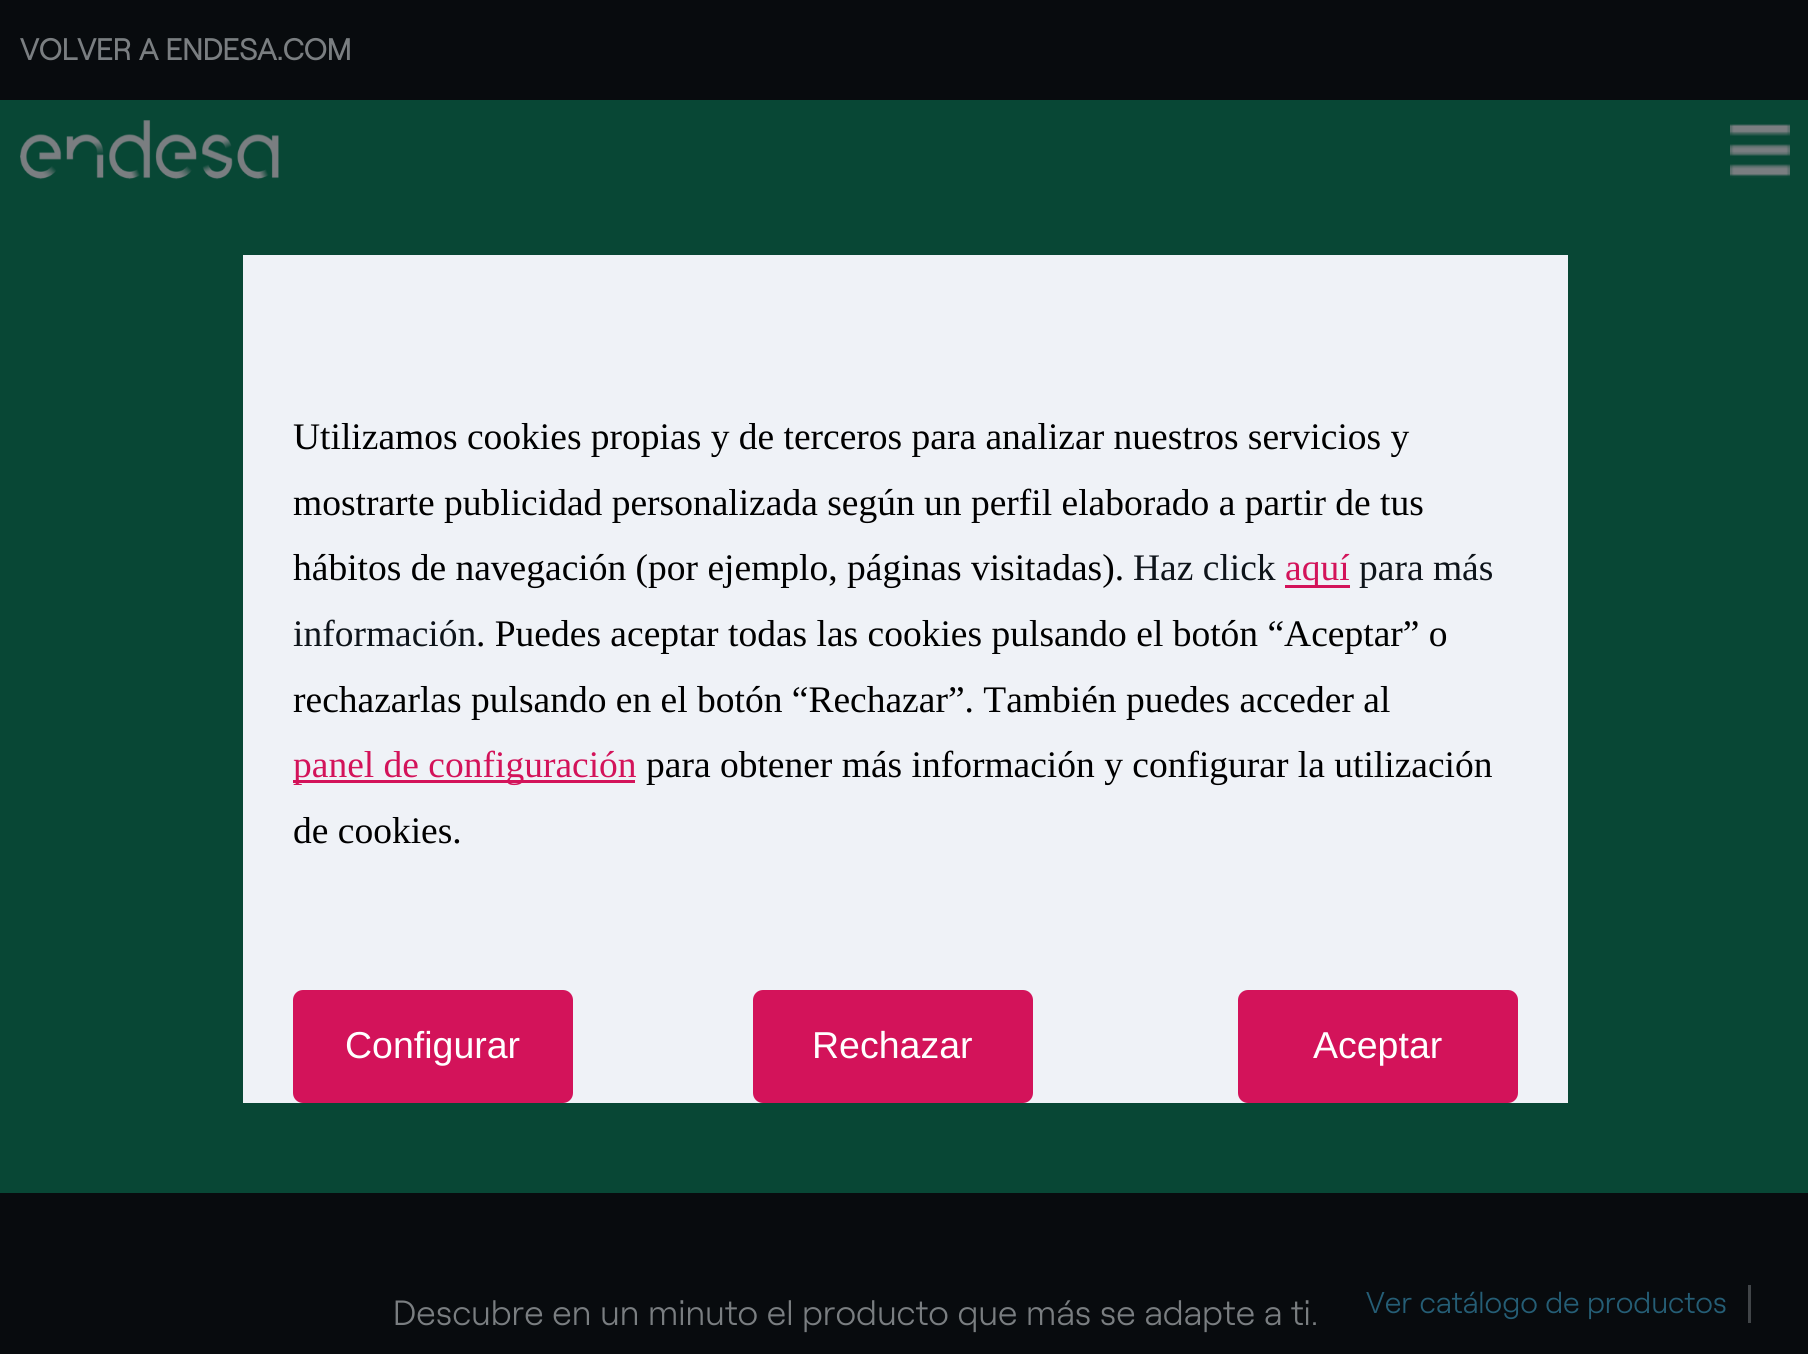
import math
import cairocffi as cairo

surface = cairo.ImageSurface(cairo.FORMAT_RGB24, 1808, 1354)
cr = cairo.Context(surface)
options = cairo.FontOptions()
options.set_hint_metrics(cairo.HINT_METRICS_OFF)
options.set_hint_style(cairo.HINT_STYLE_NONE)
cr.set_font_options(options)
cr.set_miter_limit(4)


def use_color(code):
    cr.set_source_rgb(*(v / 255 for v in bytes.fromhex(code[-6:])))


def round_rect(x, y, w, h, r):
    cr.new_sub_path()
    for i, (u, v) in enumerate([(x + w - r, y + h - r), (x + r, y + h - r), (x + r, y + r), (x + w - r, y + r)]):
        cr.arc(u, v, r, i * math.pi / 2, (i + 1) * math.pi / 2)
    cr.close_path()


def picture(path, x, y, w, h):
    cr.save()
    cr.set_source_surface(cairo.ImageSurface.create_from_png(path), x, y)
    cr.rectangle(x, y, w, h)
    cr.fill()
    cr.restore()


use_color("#080b0e")
cr.paint()
cr.select_font_face("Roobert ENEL", cairo.FONT_SLANT_NORMAL, cairo.FONT_WEIGHT_BOLD)
cr.set_font_size(30)
use_color("#7a7e81")
cr.move_to(20, 60)
cr.show_text("VOLVER A ENDESA.COM")
use_color("#084735")
cr.rectangle(0, 100, 1808, 1093)
cr.fill()
picture("img1.png", 20, 120, 259, 60)
picture("img2.png", 1730, 124, 60, 54)
use_color("#eff2f7")
cr.rectangle(243, 255, 1325, 848)
cr.fill()
cr.select_font_face("Liberation Serif")
cr.set_font_size(37.5)
use_color("#000000")
cr.move_to(293, 449)
cr.show_text("Utilizamos cookies propias y de terceros para analizar nuestros servicios y")
cr.move_to(293, 515)
cr.show_text("mostrarte publicidad personalizada según un perfil elaborado a partir de tus")
cr.move_to(293, 580)
cr.show_text("hábitos de navegación (por ejemplo, páginas visitadas).")
use_color("#0e141a")
cr.move_to(1133, 580)
cr.show_text("Haz click")
use_color("#d3135a")
cr.rectangle(1285, 585, 65, 3)
cr.fill()
cr.move_to(1285, 580)
cr.show_text("aquí")
use_color("#0e141a")
cr.move_to(1359, 580)
cr.show_text("para más")
cr.move_to(293, 646)
cr.show_text("información")
use_color("#000000")
cr.move_to(476, 646)
cr.show_text(". Puedes aceptar todas las cookies pulsando el botón “Aceptar” o")
cr.move_to(293, 712)
cr.show_text("rechazarlas pulsando en el botón “Rechazar”. También puedes acceder al")
use_color("#d3135a")
cr.rectangle(293, 780, 342, 3)
cr.fill()
cr.move_to(293, 777)
cr.show_text("panel de configuración")
use_color("#000000")
cr.move_to(646, 777)
cr.show_text("para obtener más información y configurar la utilización")
cr.move_to(293, 843)
cr.show_text("de cookies.")
use_color("#d3135a")
round_rect(294.5, 991.5, 277, 110, 8.5)
cr.fill_preserve()
cr.set_line_width(3)
cr.stroke()
cr.select_font_face("Liberation Sans")
use_color("#ffffff")
cr.move_to(345, 1058)
cr.show_text("Configurar")
use_color("#d3135a")
round_rect(754.5, 991.5, 277, 110, 8.5)
cr.fill_preserve()
cr.stroke()
use_color("#ffffff")
cr.move_to(812, 1058)
cr.show_text("Rechazar")
use_color("#d3135a")
round_rect(1239.5, 991.5, 277, 110, 8.5)
cr.fill_preserve()
cr.stroke()
use_color("#ffffff")
cr.move_to(1313, 1058)
cr.show_text("Aceptar")
cr.select_font_face("Roobert ENEL Light")
cr.set_font_size(35)
use_color("#7a7e81")
cr.move_to(393, 1325)
cr.show_text("Descubre en un minuto el producto que más se adapte a ti.")
use_color("#414548")
cr.rectangle(1748, 1285, 3, 38)
cr.fill()
cr.set_font_size(30)
use_color("#255e76")
cr.move_to(1366, 1313)
cr.show_text("Ver catálogo de productos")
surface.write_to_png("result.png")
